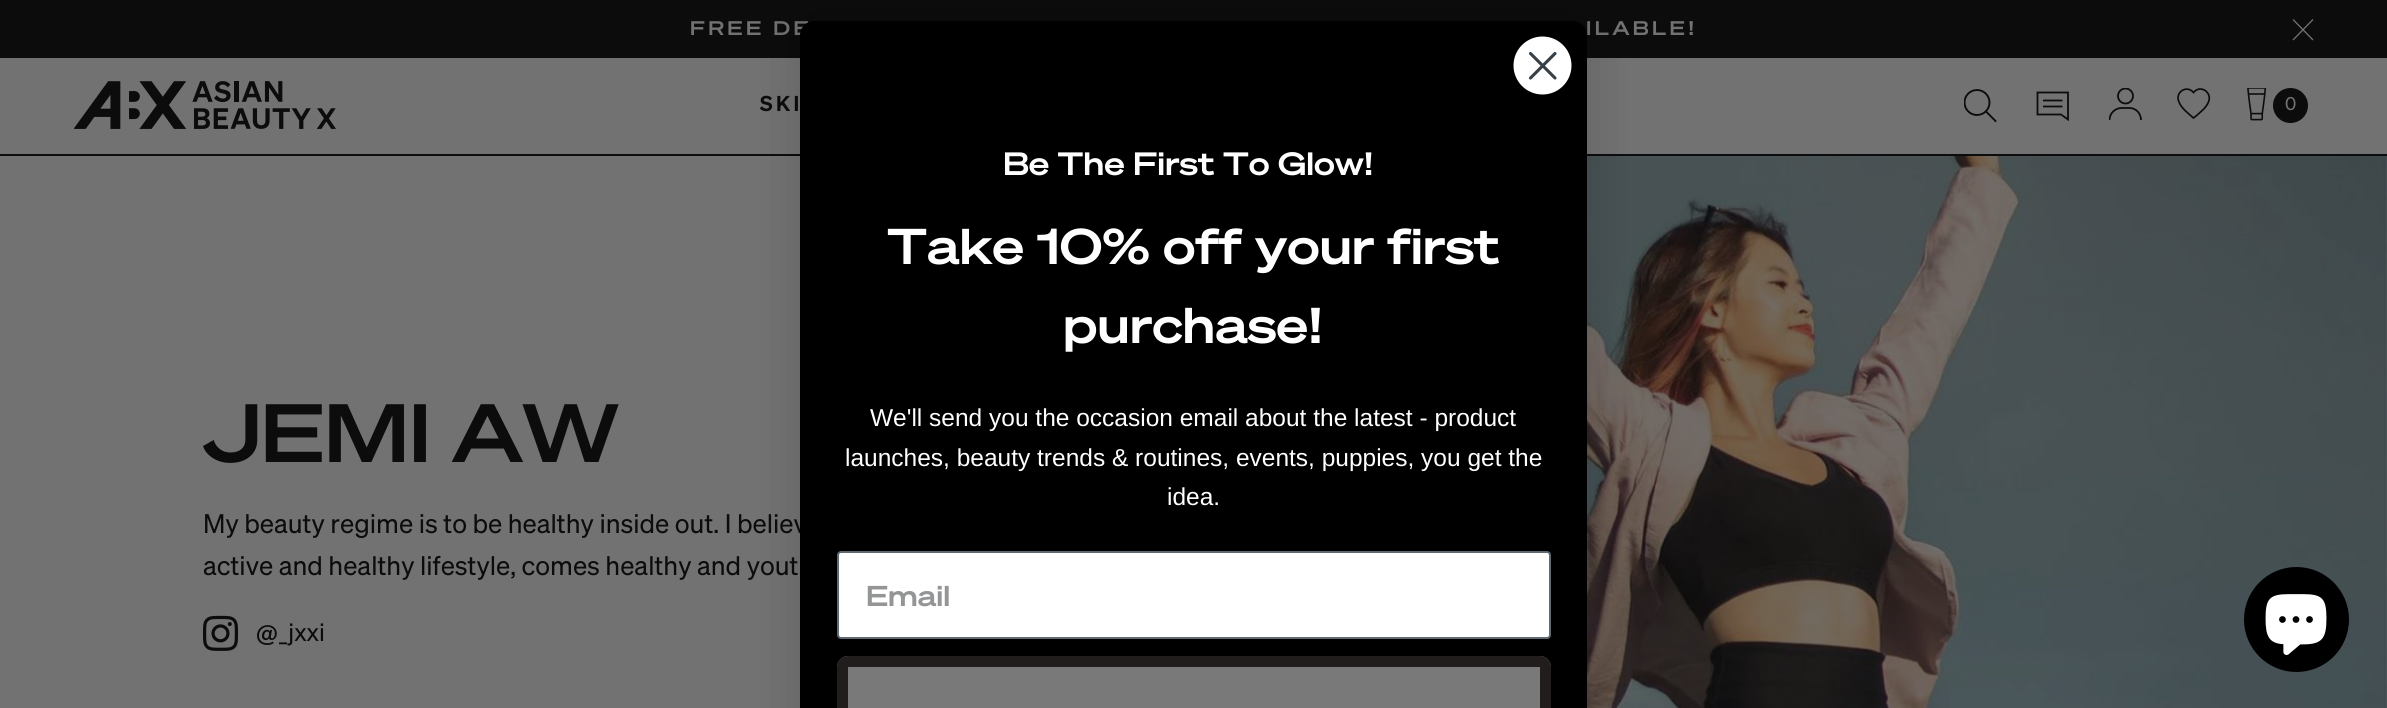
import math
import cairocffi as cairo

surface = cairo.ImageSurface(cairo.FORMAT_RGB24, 2387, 708)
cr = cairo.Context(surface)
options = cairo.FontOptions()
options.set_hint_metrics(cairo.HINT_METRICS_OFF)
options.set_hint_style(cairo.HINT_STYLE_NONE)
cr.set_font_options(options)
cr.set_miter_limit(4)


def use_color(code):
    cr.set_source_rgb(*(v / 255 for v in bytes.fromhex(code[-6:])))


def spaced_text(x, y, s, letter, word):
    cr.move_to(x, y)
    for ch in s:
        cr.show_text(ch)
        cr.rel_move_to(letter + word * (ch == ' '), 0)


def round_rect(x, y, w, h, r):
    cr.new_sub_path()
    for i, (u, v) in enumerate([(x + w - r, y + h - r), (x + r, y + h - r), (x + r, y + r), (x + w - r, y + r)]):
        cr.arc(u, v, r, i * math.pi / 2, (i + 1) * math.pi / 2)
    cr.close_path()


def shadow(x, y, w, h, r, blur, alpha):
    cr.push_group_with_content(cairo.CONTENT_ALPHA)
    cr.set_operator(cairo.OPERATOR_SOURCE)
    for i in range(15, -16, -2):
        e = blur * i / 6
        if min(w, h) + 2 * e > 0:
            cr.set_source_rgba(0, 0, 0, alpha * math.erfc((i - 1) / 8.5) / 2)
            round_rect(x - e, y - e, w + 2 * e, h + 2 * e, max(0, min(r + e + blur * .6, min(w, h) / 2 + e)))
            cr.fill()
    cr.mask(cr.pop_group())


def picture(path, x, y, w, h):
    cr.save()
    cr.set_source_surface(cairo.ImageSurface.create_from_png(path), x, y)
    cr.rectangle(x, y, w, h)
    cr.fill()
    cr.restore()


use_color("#727272")
cr.paint()
use_color("#0c0c0c")
cr.rectangle(0, 154, 2387, 2)
cr.fill()
cr.rectangle(0, 0, 2387, 58)
cr.fill()
cr.select_font_face("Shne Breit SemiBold")
cr.set_font_size(19.25)
use_color("#727272")
spaced_text(690, 35, "FREE DE", 3.5, 0)
spaced_text(1586, 35, "ILABLE!", 3.5, 0)
cr.new_path()
cr.move_to(2313, 40)
cr.line_to(2293, 19.5)
cr.move_to(2293, 40)
cr.line_to(2313, 19.5)
cr.set_line_width(1.3)
cr.stroke()
picture("img1.png", 74, 81, 262, 48)
cr.select_font_face("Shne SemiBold")
cr.set_font_size(21)
use_color("#0c0c0c")
spaced_text(760, 111, "SKI", 3.5, 0)
cr.save()
cr.rectangle(1964, 89, 33, 34)
cr.clip()
cr.arc(1977, 102.5, 12.5, 0, 2 * math.pi)
cr.set_line_width(1.9)
cr.stroke()
cr.restore()
cr.new_path()
cr.move_to(1986, 111.5)
cr.line_to(1995.5, 121)
cr.set_line_width(1.9)
cr.set_line_cap(cairo.LINE_CAP_SQUARE)
cr.stroke()
cr.new_path()
cr.move_to(2037.5, 92.5)
cr.line_to(2037.5, 114.5)
cr.line_to(2061, 114.5)
cr.line_to(2068, 119.5)
cr.line_to(2068, 92.5)
cr.close_path()
cr.set_line_width(1.8)
cr.set_line_cap(cairo.LINE_CAP_ROUND)
cr.stroke()
cr.new_path()
cr.move_to(2043, 100.5)
cr.line_to(2062.5, 100.5)
cr.move_to(2043, 106.5)
cr.line_to(2062.5, 106.5)
cr.set_line_cap(cairo.LINE_CAP_BUTT)
cr.stroke()
cr.save()
cr.rectangle(2109, 88, 33, 33)
cr.clip()
cr.arc(2125.5, 96, 7.5, 0, 2 * math.pi)
cr.stroke()
cr.new_path()
cr.move_to(2141, 120)
cr.curve_to(2141, 113.5, 2136, 108, 2129.5, 108)
cr.line_to(2121.5, 108)
cr.curve_to(2115, 108, 2109.5, 113.5, 2109.5, 120)
cr.stroke()
cr.restore()
cr.new_path()
cr.move_to(2193.5, 118)
cr.curve_to(2188.5, 113.5, 2181.5, 108.5, 2179, 102)
cr.curve_to(2174.5, 92, 2187, 84.5, 2193.5, 92.5)
cr.curve_to(2200.5, 84, 2212.5, 92.5, 2208.5, 102)
cr.curve_to(2206, 108, 2200.5, 112, 2196, 116)
cr.close_path()
cr.set_line_width(1.7)
cr.stroke()
picture("img2.png", 2247, 88, 20, 33)
cr.arc(2290.5, 105.5, 17.5, 0, 2 * math.pi)
cr.fill()
cr.select_font_face("Shne")
cr.set_font_size(18)
use_color("#727272")
cr.move_to(2285, 110)
cr.show_text("0")
cr.select_font_face("Shne Breit SemiBold")
cr.set_font_size(80.5)
use_color("#0c0c0c")
cr.move_to(203, 462)
cr.show_text("JEMI AW")
cr.select_font_face("Shne")
cr.set_font_size(26.25)
cr.move_to(203, 533)
cr.show_text("My beauty regime is to be healthy inside out. I believ")
cr.move_to(203, 575)
cr.show_text("active and healthy lifestyle, comes healthy and yout")
picture("img3.png", 203, 615, 35, 36)
cr.set_font_size(24.5)
cr.move_to(256, 641)
cr.show_text("@_jxxi")
picture("img4.png", 1587, 156, 800, 552)
use_color("#000000")
shadow(800, 21, 787, 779, 14, 26, 0.15)
use_color("#000000")
cr.new_path()
cr.move_to(814, 21)
cr.line_to(1573, 21)
cr.curve_to(1580.5, 21, 1587, 27.5, 1587, 35)
cr.line_to(1587, 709)
cr.line_to(800, 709)
cr.line_to(800, 35)
cr.curve_to(800, 27.5, 806.5, 21, 814, 21)
cr.close_path()
cr.fill()
use_color("#ffffff")
cr.arc(1542.5, 65.5, 29, 0, 2 * math.pi)
cr.fill()
cr.new_path()
cr.move_to(1530.5, 53.5)
cr.line_to(1555, 78)
cr.move_to(1530.5, 78)
cr.line_to(1555, 53.5)
cr.close_path()
use_color("#373f47")
cr.set_line_width(3.1)
cr.set_line_cap(cairo.LINE_CAP_ROUND)
cr.set_line_join(cairo.LINE_JOIN_ROUND)
cr.stroke()
cr.select_font_face("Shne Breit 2 SemiBold")
cr.set_font_size(31.5)
use_color("#ffffff")
cr.move_to(1003, 175)
cr.show_text("Be The First To Glow!")
cr.set_font_size(49)
cr.move_to(887, 264)
cr.show_text("Take 10% off your first")
cr.move_to(1063, 343)
cr.show_text("purchase!")
cr.select_font_face("Liberation Sans")
cr.set_font_size(24.5)
cr.move_to(870, 426)
cr.show_text("We'll send you the occasion email about the latest - product")
cr.move_to(845, 466)
cr.show_text("launches, beauty trends & routines, events, puppies, you get the")
cr.move_to(1167, 505)
cr.show_text("idea.")
round_rect(838, 552, 712, 86, 3)
cr.fill_preserve()
use_color("#606a72")
cr.set_line_width(2)
cr.set_line_cap(cairo.LINE_CAP_BUTT)
cr.set_line_join(cairo.LINE_JOIN_MITER)
cr.stroke()
cr.select_font_face("Shne Breit 2 SemiBold")
cr.set_font_size(28)
use_color("#949596")
cr.move_to(866, 606)
cr.show_text("Email")
use_color("#797979")
cr.new_path()
cr.move_to(848, 656)
cr.line_to(1540, 656)
cr.curve_to(1546, 656, 1551, 661, 1551, 667)
cr.line_to(1551, 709)
cr.line_to(837, 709)
cr.line_to(837, 667)
cr.curve_to(837, 661, 842, 656, 848, 656)
cr.close_path()
cr.fill()
round_rect(842.5, 661.5, 703, 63, 5.5)
use_color("#211d1c")
cr.set_line_width(11)
cr.stroke()
use_color("#000000")
cr.arc(2296.5, 619.5, 52.5, 0, 2 * math.pi)
cr.fill()
picture("img5.png", 2265, 594, 62, 61)
surface.write_to_png("result.png")
